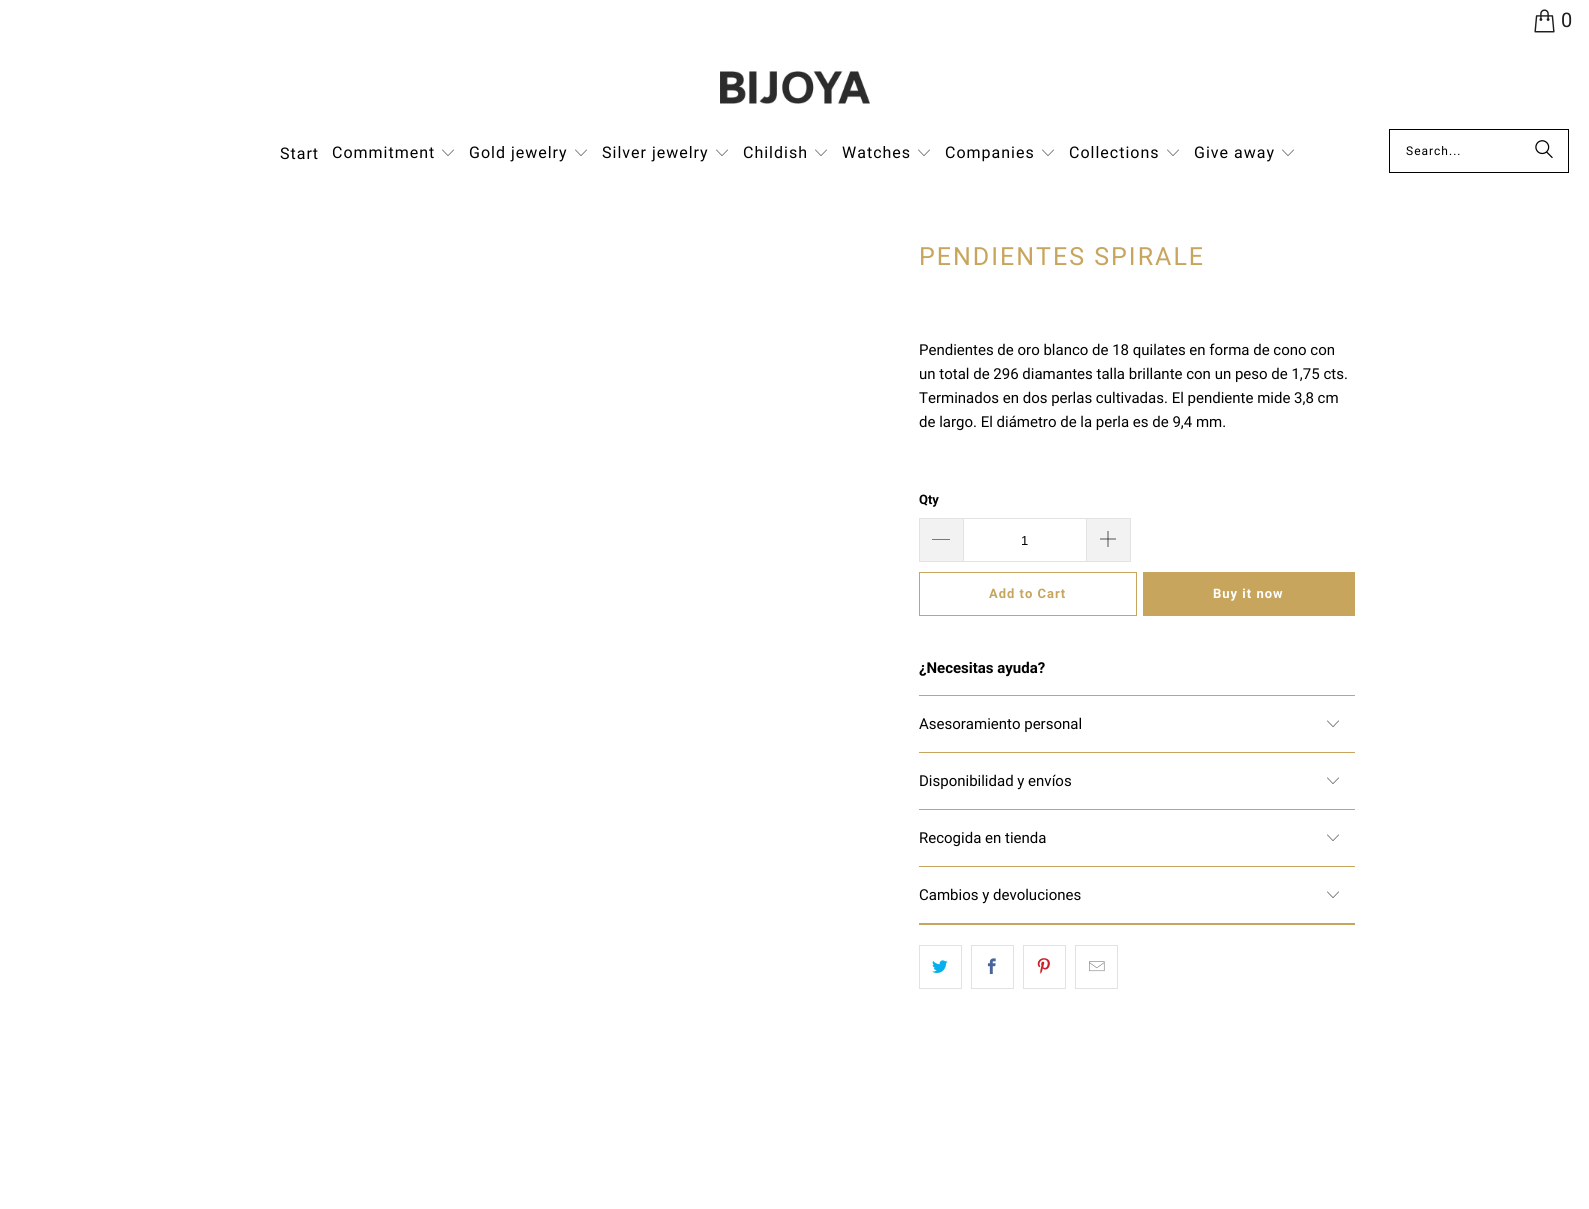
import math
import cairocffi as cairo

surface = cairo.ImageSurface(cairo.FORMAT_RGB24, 1589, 1209)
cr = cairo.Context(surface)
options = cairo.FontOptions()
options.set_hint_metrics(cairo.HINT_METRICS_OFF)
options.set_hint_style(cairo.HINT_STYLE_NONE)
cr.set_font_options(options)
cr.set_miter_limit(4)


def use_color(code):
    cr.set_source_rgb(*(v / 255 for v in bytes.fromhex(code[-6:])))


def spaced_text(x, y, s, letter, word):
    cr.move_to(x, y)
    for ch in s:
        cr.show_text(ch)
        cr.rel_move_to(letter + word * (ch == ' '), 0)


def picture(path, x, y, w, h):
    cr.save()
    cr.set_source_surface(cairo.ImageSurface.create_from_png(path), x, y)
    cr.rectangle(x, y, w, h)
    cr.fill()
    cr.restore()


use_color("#ffffff")
cr.paint()
picture("img1.png", 1534, 9, 21, 24)
cr.select_font_face("Roboto")
cr.set_font_size(20)
use_color("#1e1e1e")
spaced_text(1561, 27, "0", 1, 0)
picture("img2.png", 720, 71, 150, 33)
cr.set_font_size(16)
use_color("#000000")
spaced_text(280, 159, "Start", 1, 0)
spaced_text(332, 158, "Commitment", 1, 0)
picture("img3.png", 442, 149, 12, 7)
spaced_text(469, 158, "Gold jewelry", 1, 0)
picture("img3.png", 575, 149, 12, 7)
spaced_text(602, 158, "Silver jewelry", 1, 0)
picture("img3.png", 716, 149, 12, 7)
spaced_text(743, 158, "Childish", 1, 0)
picture("img3.png", 815, 149, 12, 7)
spaced_text(842, 158, "Watches", 1, 0)
picture("img3.png", 918, 149, 12, 7)
spaced_text(945, 158, "Companies", 1, 0)
picture("img3.png", 1042, 149, 12, 7)
spaced_text(1069, 158, "Collections", 1, 0)
picture("img3.png", 1167, 149, 12, 7)
spaced_text(1194, 158, "Give away", 1, 0)
picture("img3.png", 1282, 149, 12, 7)
cr.rectangle(1389.5, 129.5, 179, 43)
cr.set_line_width(1)
cr.stroke()
cr.set_font_size(12)
spaced_text(1406, 155, "Search...", 1, 0)
picture("img4.png", 1535, 140, 18, 19)
cr.set_font_size(25)
use_color("#c7a55d")
spaced_text(919, 265, "PENDIENTES SPIRALE", 2, 0)
cr.set_font_size(15)
use_color("#000000")
cr.move_to(919, 355)
cr.show_text("Pendientes de oro blanco de 18 quilates en forma de cono con")
cr.move_to(919, 379)
cr.show_text("un total de 296 diamantes talla brillante con un peso de 1,75 cts.")
cr.move_to(919, 403)
cr.show_text("Terminados en dos perlas cultivadas. El pendiente mide 3,8 cm")
cr.move_to(919, 427)
cr.show_text("de largo. El diámetro de la perla es de 9,4 mm.")
cr.select_font_face("Roboto", cairo.FONT_SLANT_NORMAL, cairo.FONT_WEIGHT_BOLD)
cr.set_font_size(13)
cr.move_to(919, 504)
cr.show_text("Qty")
use_color("#f2f2f2")
cr.rectangle(920, 519, 43, 42)
cr.fill()
use_color("#e2e2e2")
cr.rectangle(919, 518, 44, 1)
cr.fill()
cr.rectangle(919, 561, 44, 1)
cr.fill()
cr.rectangle(919, 518, 1, 44)
cr.fill()
use_color("#000000")
cr.new_path()
cr.move_to(932, 539)
cr.line_to(950, 539)
cr.line_to(950, 539.5)
cr.line_to(932, 539.5)
cr.close_path()
cr.fill()
cr.rectangle(963.5, 518.5, 123, 43)
use_color("#e2e2e2")
cr.stroke()
cr.select_font_face("Liberation Sans")
use_color("#000000")
cr.move_to(1021, 545)
cr.show_text("1")
use_color("#f2f2f2")
cr.rectangle(1087, 519, 43, 42)
cr.fill()
use_color("#e2e2e2")
cr.rectangle(1087, 518, 44, 1)
cr.fill()
cr.rectangle(1130, 518, 1, 44)
cr.fill()
cr.rectangle(1087, 561, 44, 1)
cr.fill()
picture("img5.png", 1100, 531, 16, 16)
cr.rectangle(919.5, 572.5, 217, 43)
use_color("#c7a55d")
cr.stroke()
cr.select_font_face("Roboto", cairo.FONT_SLANT_NORMAL, cairo.FONT_WEIGHT_BOLD)
spaced_text(989, 598, "Add to Cart", 1, 0)
cr.rectangle(1143, 572, 212, 44)
cr.fill()
use_color("#ffffff")
spaced_text(1213, 598, "Buy it now", 1, 0)
cr.set_font_size(15)
use_color("#000000")
cr.move_to(919, 673)
cr.show_text("¿Necesitas ayuda?")
use_color("#c7a55d")
cr.rectangle(919, 695, 436, 1)
cr.fill()
cr.rectangle(919, 752, 436, 1)
cr.fill()
cr.select_font_face("Roboto")
use_color("#000000")
cr.move_to(919, 729)
cr.show_text("Asesoramiento personal")
picture("img3.png", 1327, 720, 12, 7)
use_color("#c7a55d")
cr.rectangle(919, 809, 436, 1)
cr.fill()
use_color("#000000")
cr.move_to(919, 786)
cr.show_text("Disponibilidad y envíos")
picture("img3.png", 1327, 777, 12, 7)
use_color("#c7a55d")
cr.rectangle(919, 866, 436, 1)
cr.fill()
use_color("#000000")
cr.move_to(919, 843)
cr.show_text("Recogida en tienda")
picture("img3.png", 1327, 834, 12, 7)
use_color("#c7a55d")
cr.rectangle(919, 923, 436, 2)
cr.fill()
use_color("#000000")
cr.move_to(919, 900)
cr.show_text("Cambios y devoluciones")
picture("img3.png", 1327, 891, 12, 7)
cr.rectangle(919.5, 945.5, 42, 43)
use_color("#e2e2e2")
cr.stroke()
picture("img6.png", 932, 960, 16, 13)
cr.rectangle(971.5, 945.5, 42, 43)
cr.stroke()
picture("img7.png", 987, 958, 9, 16)
cr.rectangle(1023.5, 945.5, 42, 43)
cr.stroke()
picture("img8.png", 1037, 958, 13, 16)
cr.rectangle(1075.5, 945.5, 42, 43)
cr.stroke()
picture("img9.png", 1089, 961, 16, 11)
surface.write_to_png("result.png")
